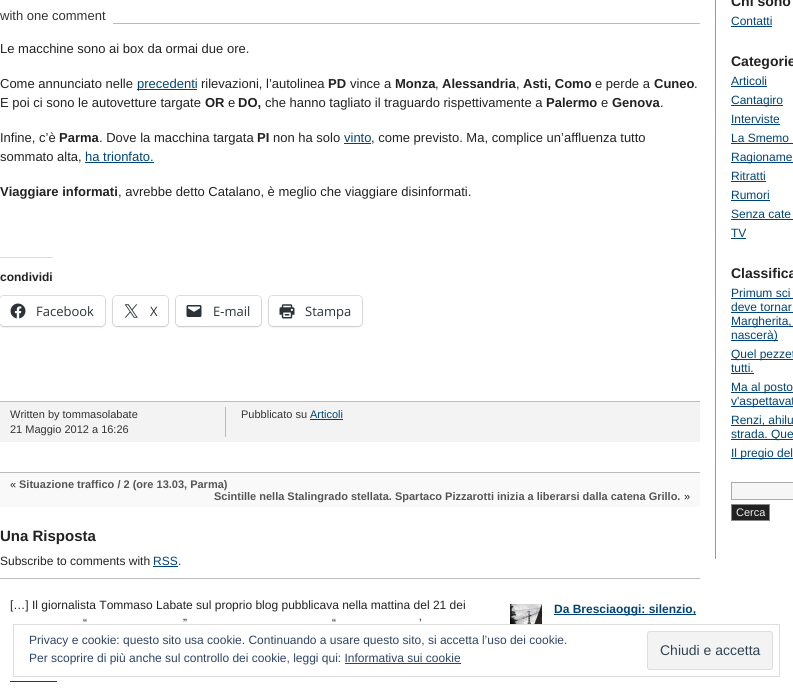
import math
import cairocffi as cairo

surface = cairo.ImageSurface(cairo.FORMAT_RGB24, 793, 690)
cr = cairo.Context(surface)
options = cairo.FontOptions()
options.set_hint_metrics(cairo.HINT_METRICS_OFF)
options.set_hint_style(cairo.HINT_STYLE_NONE)
cr.set_font_options(options)
cr.set_miter_limit(4)


def use_color(code):
    cr.set_source_rgb(*(v / 255 for v in bytes.fromhex(code[-6:])))


def round_rect(x, y, w, h, r):
    cr.new_sub_path()
    for i, (u, v) in enumerate([(x + w - r, y + h - r), (x + r, y + h - r), (x + r, y + r), (x + w - r, y + r)]):
        cr.arc(u, v, r, i * math.pi / 2, (i + 1) * math.pi / 2)
    cr.close_path()


def shadow(x, y, w, h, r, blur, alpha):
    cr.push_group_with_content(cairo.CONTENT_ALPHA)
    cr.set_operator(cairo.OPERATOR_SOURCE)
    for i in range(15, -16, -2):
        e = blur * i / 6
        if min(w, h) + 2 * e > 0:
            cr.set_source_rgba(0, 0, 0, alpha * math.erfc((i - 1) / 8.5) / 2)
            round_rect(x - e, y - e, w + 2 * e, h + 2 * e, max(0, min(r + e + blur * .6, min(w, h) / 2 + e)))
            cr.fill()
    cr.mask(cr.pop_group())


def picture(path, x, y, w, h):
    cr.save()
    cr.set_source_surface(cairo.ImageSurface.create_from_png(path), x, y)
    cr.rectangle(x, y, w, h)
    cr.fill()
    cr.restore()


use_color("#ffffff")
cr.paint()
use_color("#bbbbbb")
cr.rectangle(113, 23, 587, 1)
cr.fill()
cr.select_font_face("Liberation Sans")
cr.set_font_size(13)
use_color("#333333")
cr.move_to(0, 20)
cr.show_text("with one comment")
use_color("#222222")
cr.move_to(0, 53)
cr.show_text("Le macchine sono ai box da ormai due ore.")
cr.move_to(0, 88)
cr.show_text("Come annunciato nelle")
use_color("#004477")
cr.rectangle(137, 89, 60, 1)
cr.fill()
cr.move_to(137, 88)
cr.show_text("precedenti")
use_color("#222222")
cr.move_to(201, 88)
cr.show_text("rilevazioni, l’autolinea")
cr.select_font_face("Liberation Sans", cairo.FONT_SLANT_NORMAL, cairo.FONT_WEIGHT_BOLD)
cr.move_to(328, 88)
cr.show_text("PD")
cr.select_font_face("Liberation Sans")
cr.move_to(350, 88)
cr.show_text("vince a")
cr.select_font_face("Liberation Sans", cairo.FONT_SLANT_NORMAL, cairo.FONT_WEIGHT_BOLD)
cr.move_to(395, 88)
cr.show_text("Monza")
cr.select_font_face("Liberation Sans")
cr.move_to(435, 88)
cr.show_text(",")
cr.select_font_face("Liberation Sans", cairo.FONT_SLANT_NORMAL, cairo.FONT_WEIGHT_BOLD)
cr.move_to(442, 88)
cr.show_text("Alessandria")
cr.select_font_face("Liberation Sans")
cr.move_to(516, 88)
cr.show_text(",")
cr.select_font_face("Liberation Sans", cairo.FONT_SLANT_NORMAL, cairo.FONT_WEIGHT_BOLD)
cr.move_to(523, 88)
cr.show_text("Asti, Como")
cr.select_font_face("Liberation Sans")
cr.move_to(595, 88)
cr.show_text("e perde a")
cr.select_font_face("Liberation Sans", cairo.FONT_SLANT_NORMAL, cairo.FONT_WEIGHT_BOLD)
cr.move_to(654, 88)
cr.show_text("Cuneo")
cr.select_font_face("Liberation Sans")
cr.move_to(694, 88)
cr.show_text(".")
cr.move_to(0, 107)
cr.show_text("E poi ci sono le autovetture targate")
cr.select_font_face("Liberation Sans", cairo.FONT_SLANT_NORMAL, cairo.FONT_WEIGHT_BOLD)
cr.move_to(205, 107)
cr.show_text("OR")
cr.select_font_face("Liberation Sans")
cr.move_to(228, 107)
cr.show_text("e")
cr.select_font_face("Liberation Sans", cairo.FONT_SLANT_NORMAL, cairo.FONT_WEIGHT_BOLD)
cr.move_to(238, 107)
cr.show_text("DO,")
cr.select_font_face("Liberation Sans")
cr.move_to(265, 107)
cr.show_text("che hanno tagliato il traguardo rispettivamente a")
cr.select_font_face("Liberation Sans", cairo.FONT_SLANT_NORMAL, cairo.FONT_WEIGHT_BOLD)
cr.move_to(546, 107)
cr.show_text("Palermo")
cr.select_font_face("Liberation Sans")
cr.move_to(601, 107)
cr.show_text("e")
cr.select_font_face("Liberation Sans", cairo.FONT_SLANT_NORMAL, cairo.FONT_WEIGHT_BOLD)
cr.move_to(612, 107)
cr.show_text("Genova")
cr.select_font_face("Liberation Sans")
cr.move_to(660, 107)
cr.show_text(".")
cr.move_to(0, 142)
cr.show_text("Infine, c’è")
cr.select_font_face("Liberation Sans", cairo.FONT_SLANT_NORMAL, cairo.FONT_WEIGHT_BOLD)
cr.move_to(59, 142)
cr.show_text("Parma")
cr.select_font_face("Liberation Sans")
cr.move_to(99, 142)
cr.show_text(". Dove la macchina targata")
cr.select_font_face("Liberation Sans", cairo.FONT_SLANT_NORMAL, cairo.FONT_WEIGHT_BOLD)
cr.move_to(257, 142)
cr.show_text("PI")
cr.select_font_face("Liberation Sans")
cr.move_to(273, 142)
cr.show_text("non ha solo")
use_color("#004477")
cr.move_to(344, 142)
cr.show_text("vinto")
cr.rectangle(344, 143, 27, 1)
cr.fill()
use_color("#222222")
cr.move_to(371, 142)
cr.show_text(", come previsto. Ma, complice un’affluenza tutto")
cr.move_to(0, 161)
cr.show_text("sommato alta,")
use_color("#004477")
cr.move_to(85, 161)
cr.show_text("ha trionfato.")
cr.rectangle(85, 162, 69, 1)
cr.fill()
cr.select_font_face("Liberation Sans", cairo.FONT_SLANT_NORMAL, cairo.FONT_WEIGHT_BOLD)
use_color("#222222")
cr.move_to(0, 196)
cr.show_text("Viaggiare informati")
cr.select_font_face("Liberation Sans")
cr.move_to(118, 196)
cr.show_text(", avrebbe detto Catalano, è meglio che viaggiare disinformati.")
use_color("#dcdcde")
cr.rectangle(0, 257, 53, 1)
cr.fill()
cr.select_font_face("Liberation Sans", cairo.FONT_SLANT_NORMAL, cairo.FONT_WEIGHT_BOLD)
cr.set_font_size(12)
use_color("#222222")
cr.move_to(0, 281)
cr.show_text("condividi")
round_rect(-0.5, 295.5, 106, 31, 4.5)
use_color("#e0e0e0")
cr.set_line_width(1)
cr.stroke()
use_color("#000000")
shadow(0, 297, 105, 30, 4, 1, 0.12)
use_color("#ffffff")
round_rect(0, 296, 105, 30, 4)
cr.fill()
picture("img1.png", 10, 303, 16, 16)
cr.select_font_face("Open Sans")
cr.set_font_size(13)
use_color("#2c3338")
cr.move_to(36, 316)
cr.show_text("Facebook")
round_rect(112.5, 295.5, 56, 31, 4.5)
use_color("#e0e0e0")
cr.stroke()
use_color("#000000")
shadow(113, 297, 55, 30, 4, 1, 0.12)
use_color("#ffffff")
round_rect(113, 296, 55, 30, 4)
cr.fill()
picture("img2.png", 124, 304, 14, 14)
use_color("#2c3338")
cr.move_to(150, 316)
cr.show_text("X")
round_rect(175.5, 295.5, 86, 31, 4.5)
use_color("#e0e0e0")
cr.stroke()
use_color("#000000")
shadow(176, 297, 85, 30, 4, 1, 0.12)
use_color("#ffffff")
round_rect(176, 296, 85, 30, 4)
cr.fill()
picture("img3.png", 186, 305, 16, 12)
use_color("#2c3338")
cr.move_to(213, 316)
cr.show_text("E-mail")
round_rect(268.5, 295.5, 94, 31, 4.5)
use_color("#e0e0e0")
cr.stroke()
use_color("#000000")
shadow(269, 297, 93, 30, 4, 1, 0.12)
use_color("#ffffff")
round_rect(269, 296, 93, 30, 4)
cr.fill()
picture("img4.png", 279, 304, 16, 15)
use_color("#2c3338")
cr.move_to(305, 316)
cr.show_text("Stampa")
use_color("#f3f3f3")
cr.rectangle(0, 402, 700, 40)
cr.fill()
use_color("#bbbbbb")
cr.rectangle(0, 401, 700, 1)
cr.fill()
cr.rectangle(225, 407, 1, 30)
cr.fill()
cr.select_font_face("Liberation Sans")
cr.set_font_size(11)
use_color("#333333")
cr.move_to(10, 418)
cr.show_text("Written by tommasolabate")
cr.move_to(10, 433)
cr.show_text("21 Maggio 2012 a 16:26")
cr.move_to(241, 418)
cr.show_text("Pubblicato su")
use_color("#004477")
cr.move_to(310, 418)
cr.show_text("Articoli")
cr.rectangle(310, 419, 33, 1)
cr.fill()
use_color("#f9f9f9")
cr.rectangle(0, 473, 700, 34)
cr.fill()
use_color("#bbbbbb")
cr.rectangle(0, 472, 700, 1)
cr.fill()
use_color("#222222")
cr.move_to(10, 488)
cr.show_text("«")
cr.select_font_face("Liberation Sans", cairo.FONT_SLANT_NORMAL, cairo.FONT_WEIGHT_BOLD)
use_color("#555555")
cr.move_to(19, 488)
cr.show_text("Situazione traffico / 2 (ore 13.03, Parma)")
cr.move_to(214, 500)
cr.show_text("Scintille nella Stalingrado stellata. Spartaco Pizzarotti inizia a liberarsi dalla catena Grillo.")
cr.select_font_face("Liberation Sans")
use_color("#222222")
cr.move_to(684, 500)
cr.show_text("»")
cr.select_font_face("Liberation Sans", cairo.FONT_SLANT_NORMAL, cairo.FONT_WEIGHT_BOLD)
cr.set_font_size(15)
cr.move_to(0, 541)
cr.show_text("Una Risposta")
cr.select_font_face("Liberation Sans")
cr.set_font_size(12)
cr.move_to(0, 565)
cr.show_text("Subscribe to comments with")
use_color("#004477")
cr.move_to(153, 565)
cr.show_text("RSS")
cr.rectangle(153, 566, 25, 1)
cr.fill()
use_color("#222222")
cr.move_to(178, 565)
cr.show_text(".")
use_color("#bbbbbb")
cr.rectangle(0, 578, 700, 1)
cr.fill()
use_color("#222222")
cr.move_to(10, 609)
cr.show_text("[…] Il giornalista Tommaso Labate sul proprio blog pubblicava nella mattina del 21 dei")
cr.move_to(83, 627)
cr.show_text("“")
cr.move_to(183, 627)
cr.show_text("”")
cr.move_to(332, 627)
cr.show_text("“")
cr.move_to(419, 627)
cr.show_text("’")
picture("img5.png", 510, 604, 32, 20)
use_color("#004477")
cr.rectangle(554, 614, 142, 1)
cr.fill()
cr.select_font_face("Liberation Sans", cairo.FONT_SLANT_NORMAL, cairo.FONT_WEIGHT_BOLD)
cr.move_to(554, 613)
cr.show_text("Da Bresciaoggi: silenzio,")
cr.rectangle(10, 681, 47, 1)
cr.fill()
use_color("#999999")
cr.rectangle(715, 0, 1, 559)
cr.fill()
cr.set_font_size(14)
use_color("#222222")
cr.move_to(731, 6)
cr.show_text("Chi sono")
cr.select_font_face("Liberation Sans")
cr.set_font_size(12)
use_color("#004477")
cr.move_to(731, 25)
cr.show_text("Contatti")
cr.rectangle(731, 26, 41, 1)
cr.fill()
cr.select_font_face("Liberation Sans", cairo.FONT_SLANT_NORMAL, cairo.FONT_WEIGHT_BOLD)
cr.set_font_size(14)
use_color("#222222")
cr.move_to(731, 66)
cr.show_text("Categorie")
cr.select_font_face("Liberation Sans")
cr.set_font_size(12)
use_color("#004477")
cr.move_to(731, 85)
cr.show_text("Articoli")
cr.rectangle(731, 86, 36, 1)
cr.fill()
cr.rectangle(731, 105, 52, 1)
cr.fill()
cr.move_to(731, 104)
cr.show_text("Cantagiro")
cr.move_to(731, 123)
cr.show_text("Interviste")
cr.rectangle(731, 124, 49, 1)
cr.fill()
cr.move_to(731, 142)
cr.show_text("La Smemo")
cr.rectangle(731, 143, 62, 1)
cr.fill()
cr.rectangle(731, 162, 62, 1)
cr.fill()
cr.move_to(731, 161)
cr.show_text("Ragioname")
cr.move_to(731, 180)
cr.show_text("Ritratti")
cr.rectangle(731, 181, 35, 1)
cr.fill()
cr.move_to(731, 199)
cr.show_text("Rumori")
cr.rectangle(731, 200, 39, 1)
cr.fill()
cr.move_to(731, 218)
cr.show_text("Senza cate")
cr.rectangle(731, 219, 62, 1)
cr.fill()
cr.move_to(731, 237)
cr.show_text("TV")
cr.rectangle(731, 238, 15, 1)
cr.fill()
cr.select_font_face("Liberation Sans", cairo.FONT_SLANT_NORMAL, cairo.FONT_WEIGHT_BOLD)
cr.set_font_size(14)
use_color("#222222")
cr.move_to(731, 278)
cr.show_text("Classifica")
cr.select_font_face("Liberation Sans")
cr.set_font_size(12)
use_color("#004477")
cr.move_to(731, 297)
cr.show_text("Primum sci")
cr.rectangle(731, 298, 62, 1)
cr.fill()
cr.move_to(731, 311)
cr.show_text("deve tornar")
cr.rectangle(731, 312, 62, 1)
cr.fill()
cr.rectangle(731, 326, 62, 1)
cr.fill()
cr.move_to(731, 325)
cr.show_text("Margherita,")
cr.rectangle(731, 340, 47, 1)
cr.fill()
cr.move_to(731, 339)
cr.show_text("nascerà)")
cr.rectangle(731, 359, 62, 1)
cr.fill()
cr.move_to(731, 358)
cr.show_text("Quel pezzet")
cr.move_to(731, 372)
cr.show_text("tutti.")
cr.rectangle(731, 373, 23, 1)
cr.fill()
cr.rectangle(731, 392, 62, 1)
cr.fill()
cr.move_to(731, 391)
cr.show_text("Ma al posto")
cr.rectangle(731, 406, 62, 1)
cr.fill()
cr.move_to(731, 405)
cr.show_text("v'aspettavat")
cr.rectangle(731, 425, 62, 1)
cr.fill()
cr.move_to(731, 424)
cr.show_text("Renzi, ahilu")
cr.rectangle(731, 439, 62, 1)
cr.fill()
cr.move_to(731, 438)
cr.show_text("strada. Que")
cr.rectangle(731, 458, 62, 1)
cr.fill()
cr.move_to(731, 457)
cr.show_text("Il pregio del")
use_color("#f6f6f6")
cr.rectangle(731.5, 482.5, 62, 17)
cr.fill_preserve()
use_color("#aaaaaa")
cr.stroke()
use_color("#222222")
cr.rectangle(731.5, 504.5, 38, 16)
cr.fill_preserve()
use_color("#888888")
cr.stroke()
cr.set_font_size(11)
use_color("#eeeeee")
cr.move_to(736, 516)
cr.show_text("Cerca")
cr.rectangle(13.5, 624.5, 766, 52)
use_color("#dedede")
cr.stroke()
cr.set_font_size(12)
use_color("#2e4467")
cr.move_to(29, 644)
cr.show_text("Privacy e cookie: questo sito usa cookie. Continuando a usare questo sito, si accetta l’uso dei cookie.")
use_color("#f3f3f3")
round_rect(647.5, 631.5, 125, 38, 2.5)
cr.fill_preserve()
use_color("#dedede")
cr.stroke()
cr.set_font_size(14)
use_color("#2e4453")
cr.move_to(660, 655)
cr.show_text("Chiudi e accetta")
cr.set_font_size(12)
use_color("#2e4467")
cr.move_to(29, 662)
cr.show_text("Per scoprire di più anche sul controllo dei cookie, leggi qui: Informativa sui cookie")
cr.rectangle(345, 663, 116, 1)
cr.fill()
surface.write_to_png("result.png")
